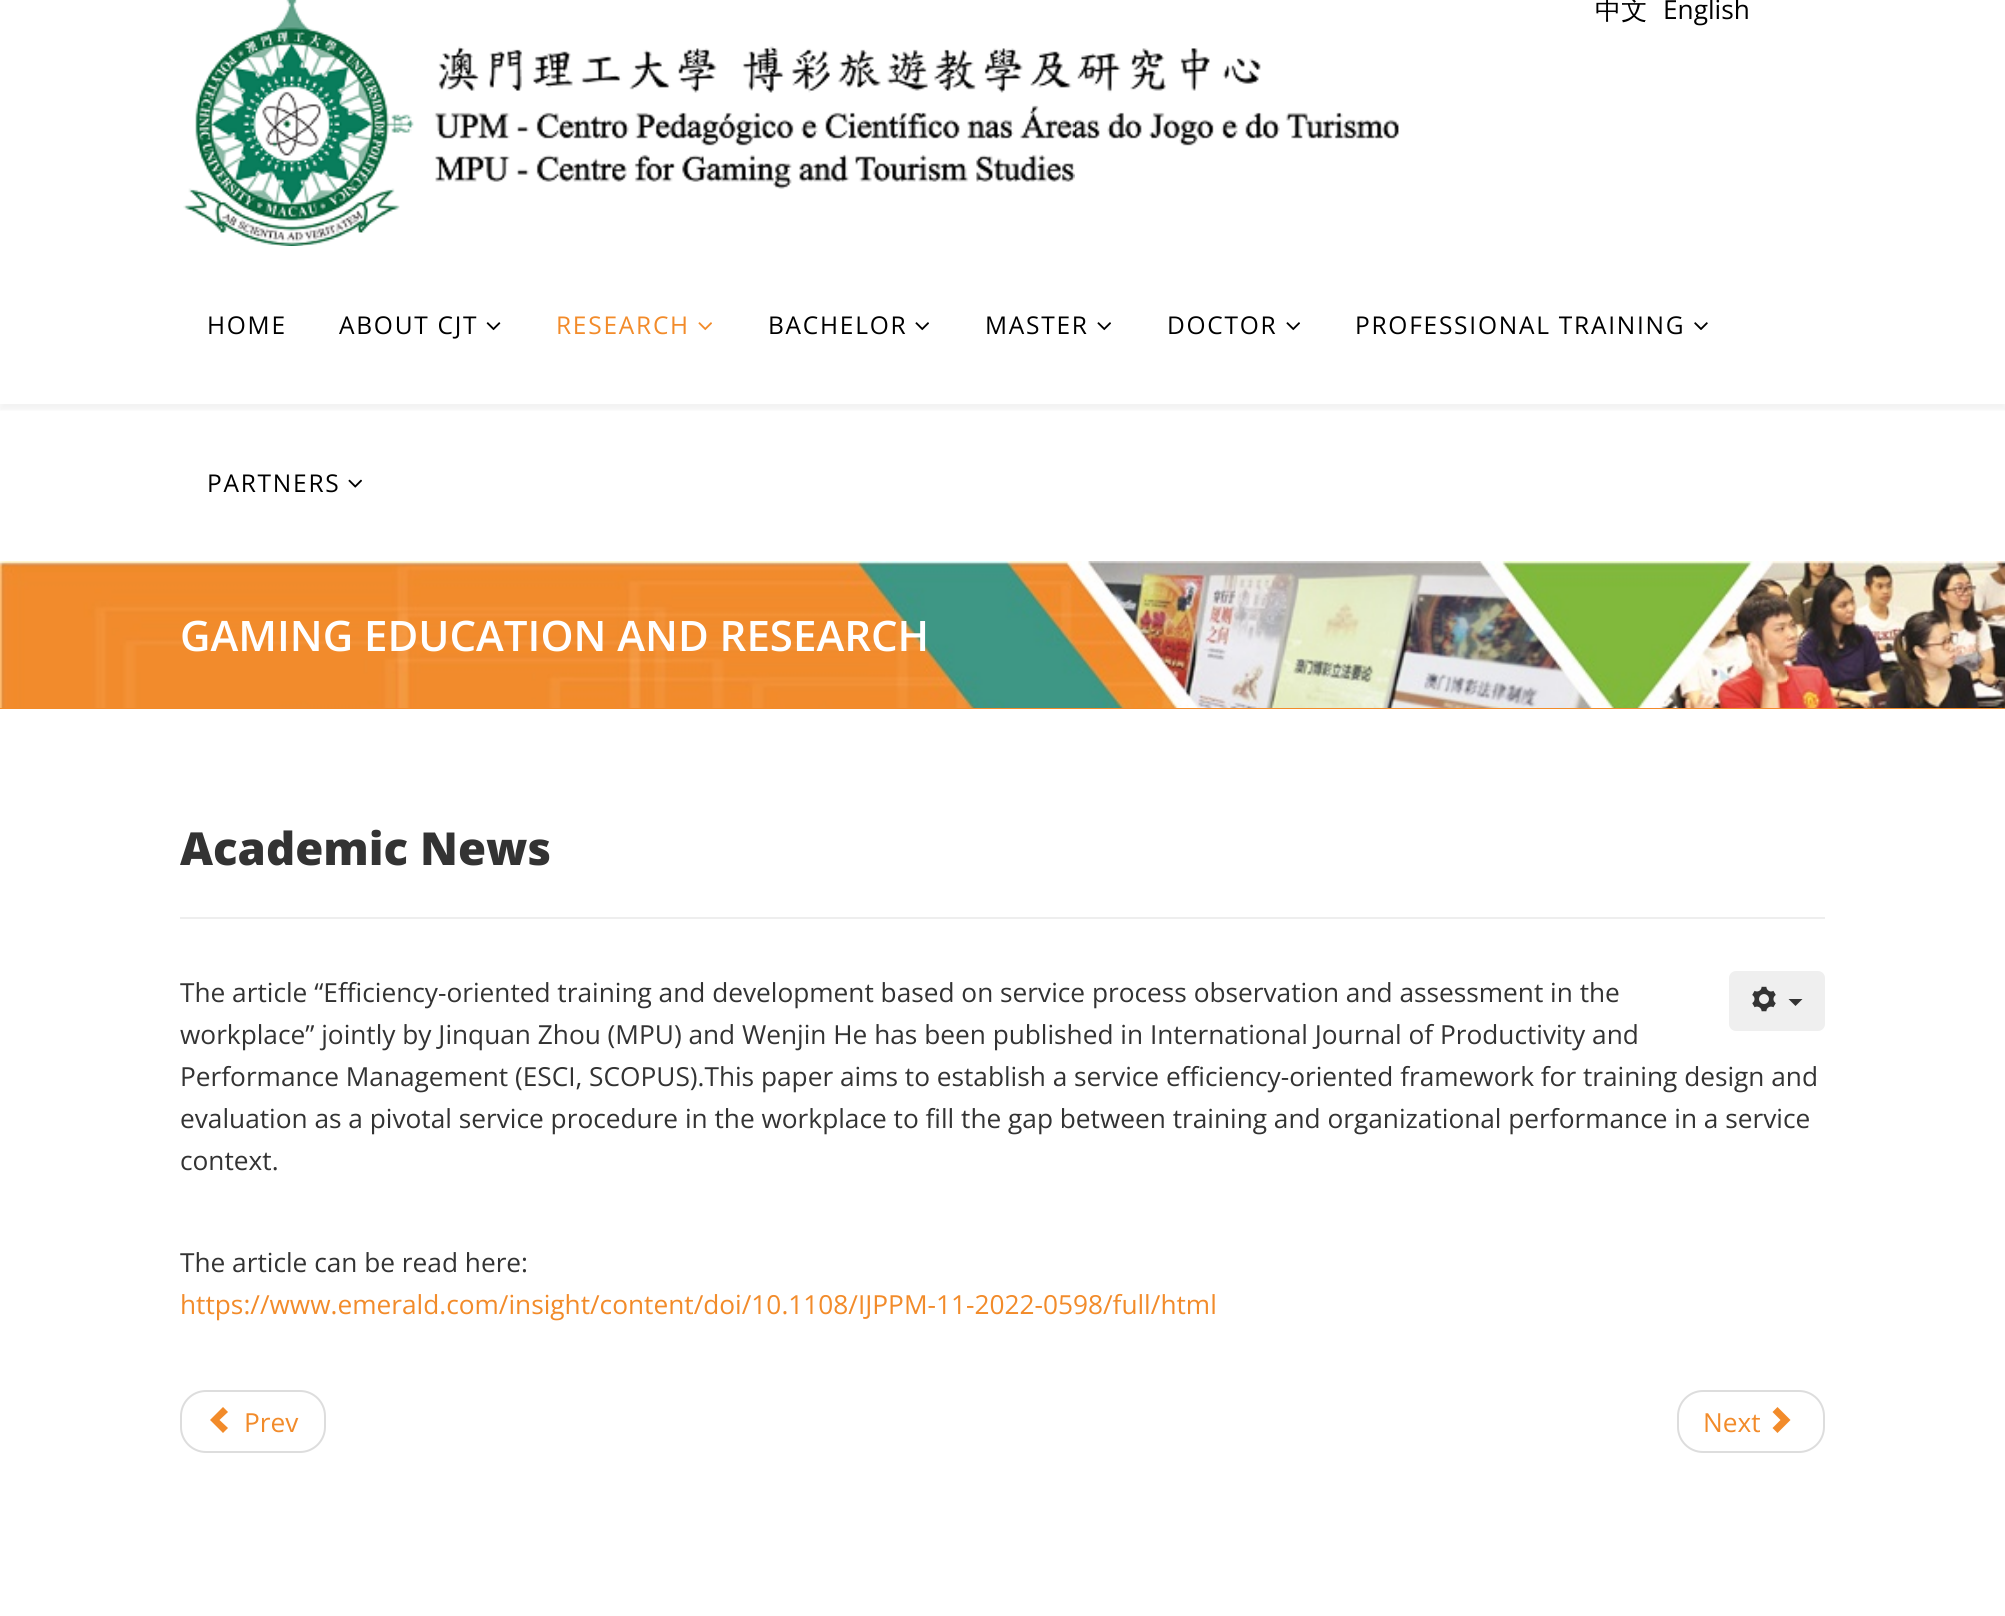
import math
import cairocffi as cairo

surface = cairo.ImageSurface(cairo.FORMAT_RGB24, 2005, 1616)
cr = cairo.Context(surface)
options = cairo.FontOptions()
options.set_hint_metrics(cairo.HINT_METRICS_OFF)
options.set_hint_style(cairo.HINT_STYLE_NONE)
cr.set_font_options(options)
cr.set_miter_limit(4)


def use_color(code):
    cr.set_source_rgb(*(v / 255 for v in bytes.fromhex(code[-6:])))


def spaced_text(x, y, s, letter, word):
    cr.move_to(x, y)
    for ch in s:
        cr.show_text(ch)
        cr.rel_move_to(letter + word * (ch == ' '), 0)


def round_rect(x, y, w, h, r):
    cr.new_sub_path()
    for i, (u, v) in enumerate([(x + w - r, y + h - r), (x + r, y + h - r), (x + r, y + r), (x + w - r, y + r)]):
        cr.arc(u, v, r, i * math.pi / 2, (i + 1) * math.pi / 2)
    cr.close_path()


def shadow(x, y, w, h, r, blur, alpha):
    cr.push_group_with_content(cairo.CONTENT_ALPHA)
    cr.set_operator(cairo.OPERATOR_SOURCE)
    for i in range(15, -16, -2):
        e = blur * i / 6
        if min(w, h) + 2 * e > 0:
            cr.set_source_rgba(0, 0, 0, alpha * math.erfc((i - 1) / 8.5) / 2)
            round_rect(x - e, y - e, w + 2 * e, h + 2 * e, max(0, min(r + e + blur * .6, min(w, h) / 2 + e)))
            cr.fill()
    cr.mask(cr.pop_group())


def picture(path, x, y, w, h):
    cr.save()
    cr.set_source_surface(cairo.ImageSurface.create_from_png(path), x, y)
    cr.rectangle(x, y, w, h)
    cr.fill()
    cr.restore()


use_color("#ffffff")
cr.paint()
picture("img1.png", 183, 0, 1216, 246)
cr.select_font_face("WenQuanYi Zen Hei Medium")
cr.set_font_size(26.25)
use_color("#000000")
cr.move_to(1595, 19)
cr.show_text("中文")
cr.select_font_face("Open Sans")
cr.move_to(1663, 19)
cr.show_text("English")
cr.save()
cr.rectangle(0, 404, 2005, 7)
cr.clip()
use_color("#000000")
shadow(0, 252, 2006, 158, 0, 2.5, 0.05)
cr.restore()
cr.set_font_size(24.5)
spaced_text(207, 334, "HOME", 1.75, 0)
spaced_text(339, 334, "ABOUT CJT", 1.75, 0)
picture("img2.png", 486, 322, 15, 9)
use_color("#f28b2a")
spaced_text(556, 334, "RESEARCH", 1.75, 0)
picture("img3.png", 698, 322, 14, 9)
use_color("#000000")
spaced_text(768, 334, "BACHELOR", 1.75, 0)
picture("img4.png", 915, 322, 14, 9)
spaced_text(985, 334, "MASTER", 1.75, 0)
picture("img4.png", 1097, 322, 14, 9)
spaced_text(1167, 334, "DOCTOR", 1.75, 0)
picture("img4.png", 1286, 322, 14, 9)
spaced_text(1355, 334, "PROFESSIONAL TRAINING", 1.75, 0)
picture("img5.png", 1694, 322, 14, 8)
spaced_text(207, 492, "PARTNERS", 1.75, 0)
picture("img6.png", 348, 479, 14, 9)
use_color("#f28b2a")
cr.rectangle(0, 708, 2005, 1)
cr.fill()
picture("img7.png", 0, 561, 2005, 147)
cr.select_font_face("Open Sans SemiBold")
cr.set_font_size(42)
use_color("#ffffff")
cr.move_to(180, 651)
cr.show_text("GAMING EDUCATION AND RESEARCH")
use_color("#eeeeee")
cr.rectangle(180, 917, 1645, 2)
cr.fill()
cr.select_font_face("Open Sans ExtraBold")
cr.set_font_size(45.5)
use_color("#333333")
cr.move_to(180, 865)
cr.show_text("Academic News")
use_color("#efefef")
round_rect(1729, 971, 96, 60, 7)
cr.fill()
picture("img8.png", 1752, 986, 24, 26)
use_color("#333333")
cr.new_path()
cr.move_to(1788.5, 999)
cr.line_to(1802.5, 999)
cr.line_to(1795.5, 1006)
cr.close_path()
cr.fill()
cr.select_font_face("Open Sans")
cr.set_font_size(26.25)
cr.move_to(180, 1002)
cr.show_text("The article “Efficiency-oriented training and development based on service process observation and assessment in the")
cr.move_to(180, 1044)
cr.show_text("workplace” jointly by Jinquan Zhou (MPU) and Wenjin He has been published in International Journal of Productivity and")
cr.move_to(180, 1086)
cr.show_text("Performance Management (ESCI, SCOPUS).This paper aims to establish a service efficiency-oriented framework for training design and")
cr.move_to(180, 1128)
cr.show_text("evaluation as a pivotal service procedure in the workplace to fill the gap between training and organizational performance in a service")
cr.move_to(180, 1170)
cr.show_text("context.")
cr.move_to(180, 1272)
cr.show_text("The article can be read here:")
use_color("#f28b2a")
cr.move_to(180, 1314)
cr.show_text("https://www.emerald.com/insight/content/doi/10.1108/IJPPM-11-2022-0598/full/html")
round_rect(181, 1391, 144, 61, 25)
use_color("#dddddd")
cr.stroke()
use_color("#f28b2a")
cr.new_path()
cr.move_to(223, 1433)
cr.line_to(210, 1420)
cr.line_to(223, 1407)
cr.line_to(228, 1412)
cr.line_to(219.5, 1420)
cr.line_to(228, 1428)
cr.close_path()
cr.fill()
cr.move_to(244, 1432)
cr.show_text("Prev")
round_rect(1678, 1391, 146, 61, 25)
use_color("#dddddd")
cr.stroke()
use_color("#f28b2a")
cr.move_to(1703, 1432)
cr.show_text("Next")
cr.new_path()
cr.move_to(1777.5, 1407)
cr.line_to(1790.5, 1420)
cr.line_to(1777.5, 1433)
cr.line_to(1772.5, 1428)
cr.line_to(1780.5, 1420)
cr.line_to(1772.5, 1412)
cr.close_path()
cr.fill()
surface.write_to_png("result.png")
